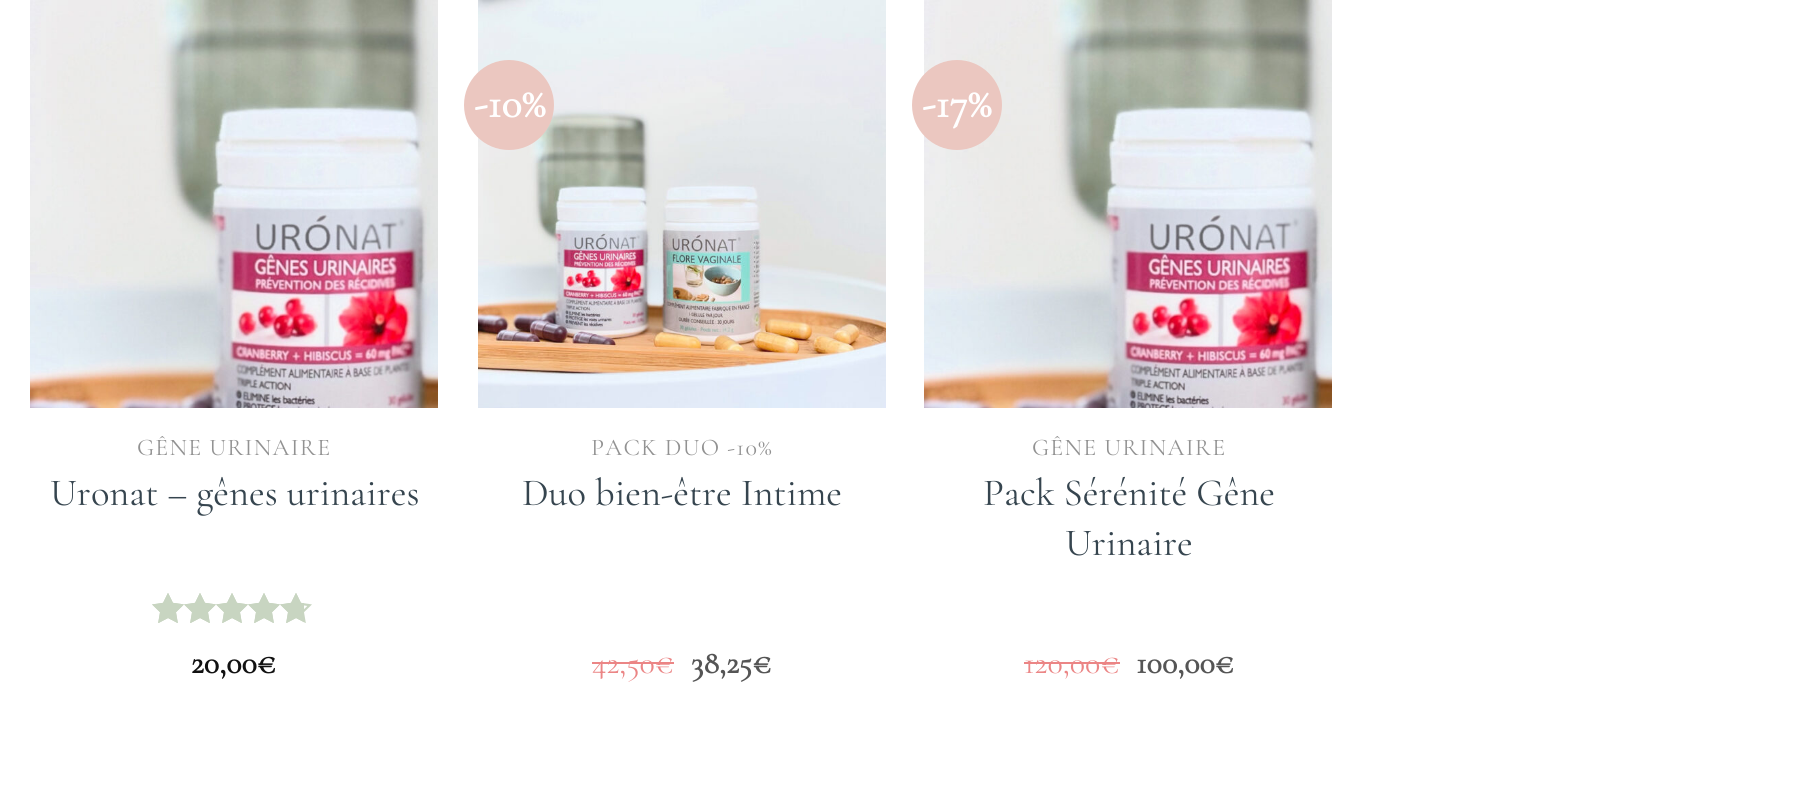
import math
import cairocffi as cairo

surface = cairo.ImageSurface(cairo.FORMAT_RGB24, 1810, 796)
cr = cairo.Context(surface)
options = cairo.FontOptions()
options.set_hint_metrics(cairo.HINT_METRICS_OFF)
options.set_hint_style(cairo.HINT_STYLE_NONE)
cr.set_font_options(options)
cr.set_miter_limit(4)


def use_color(code):
    cr.set_source_rgb(*(v / 255 for v in bytes.fromhex(code[-6:])))


def spaced_text(x, y, s, letter, word):
    cr.move_to(x, y)
    for ch in s:
        cr.show_text(ch)
        cr.rel_move_to(letter + word * (ch == ' '), 0)


def picture(path, x, y, w, h):
    cr.save()
    cr.set_source_surface(cairo.ImageSurface.create_from_png(path), x, y)
    cr.rectangle(x, y, w, h)
    cr.fill()
    cr.restore()


use_color("#ffffff")
cr.paint()
picture("img1.png", 30, 0, 408, 408)
cr.select_font_face("Cormorant Garamond Light")
cr.set_font_size(24)
use_color("#929292")
spaced_text(137, 455, "GÊNE URINAIRE", 1.25, 0)
cr.set_font_size(38.5)
use_color("#36454f")
cr.move_to(50, 505)
cr.show_text("Uronat – gênes urinaires")
picture("img2.png", 152, 593, 160, 30)
picture("img3.png", 152, 593, 152, 30)
cr.select_font_face("Cormorant Garamond", cairo.FONT_SLANT_NORMAL, cairo.FONT_WEIGHT_BOLD)
cr.set_font_size(32)
use_color("#111111")
cr.move_to(191, 673)
cr.show_text("20,00€")
picture("img4.png", 478, 0, 408, 408)
use_color("#ebc7c0")
cr.arc(509, 105, 45, 0, 2 * math.pi)
cr.fill()
cr.set_font_size(42)
use_color("#ffffff")
cr.move_to(474, 117)
cr.show_text("-10%")
cr.select_font_face("Cormorant Garamond Light")
cr.set_font_size(24)
use_color("#929292")
spaced_text(591, 455, "PACK DUO -10%", 1.25, 0)
cr.set_font_size(38.5)
use_color("#36454f")
cr.move_to(522, 505)
cr.show_text("Duo bien-être Intime")
cr.set_font_size(32)
use_color("#eb8585")
cr.move_to(592, 673)
cr.show_text("42,50€")
cr.rectangle(592, 662, 82, 2)
cr.fill()
cr.select_font_face("Cormorant Garamond", cairo.FONT_SLANT_NORMAL, cairo.FONT_WEIGHT_BOLD)
use_color("#555555")
cr.move_to(691, 673)
cr.show_text("38,25€")
picture("img5.png", 924, 0, 408, 408)
use_color("#ebc7c0")
cr.arc(957, 105, 45, 0, 2 * math.pi)
cr.fill()
cr.set_font_size(42)
use_color("#ffffff")
cr.move_to(922, 117)
cr.show_text("-17%")
cr.select_font_face("Cormorant Garamond Light")
cr.set_font_size(24)
use_color("#929292")
spaced_text(1032, 455, "GÊNE URINAIRE", 1.25, 0)
cr.set_font_size(38.5)
use_color("#36454f")
cr.move_to(983, 505)
cr.show_text("Pack Sérénité Gêne")
cr.move_to(1065, 555)
cr.show_text("Urinaire")
cr.set_font_size(32)
use_color("#eb8585")
cr.move_to(1024, 673)
cr.show_text("120,00€")
cr.rectangle(1024, 662, 96, 2)
cr.fill()
cr.select_font_face("Cormorant Garamond", cairo.FONT_SLANT_NORMAL, cairo.FONT_WEIGHT_BOLD)
use_color("#555555")
cr.move_to(1136, 673)
cr.show_text("100,00€")
surface.write_to_png("result.png")
